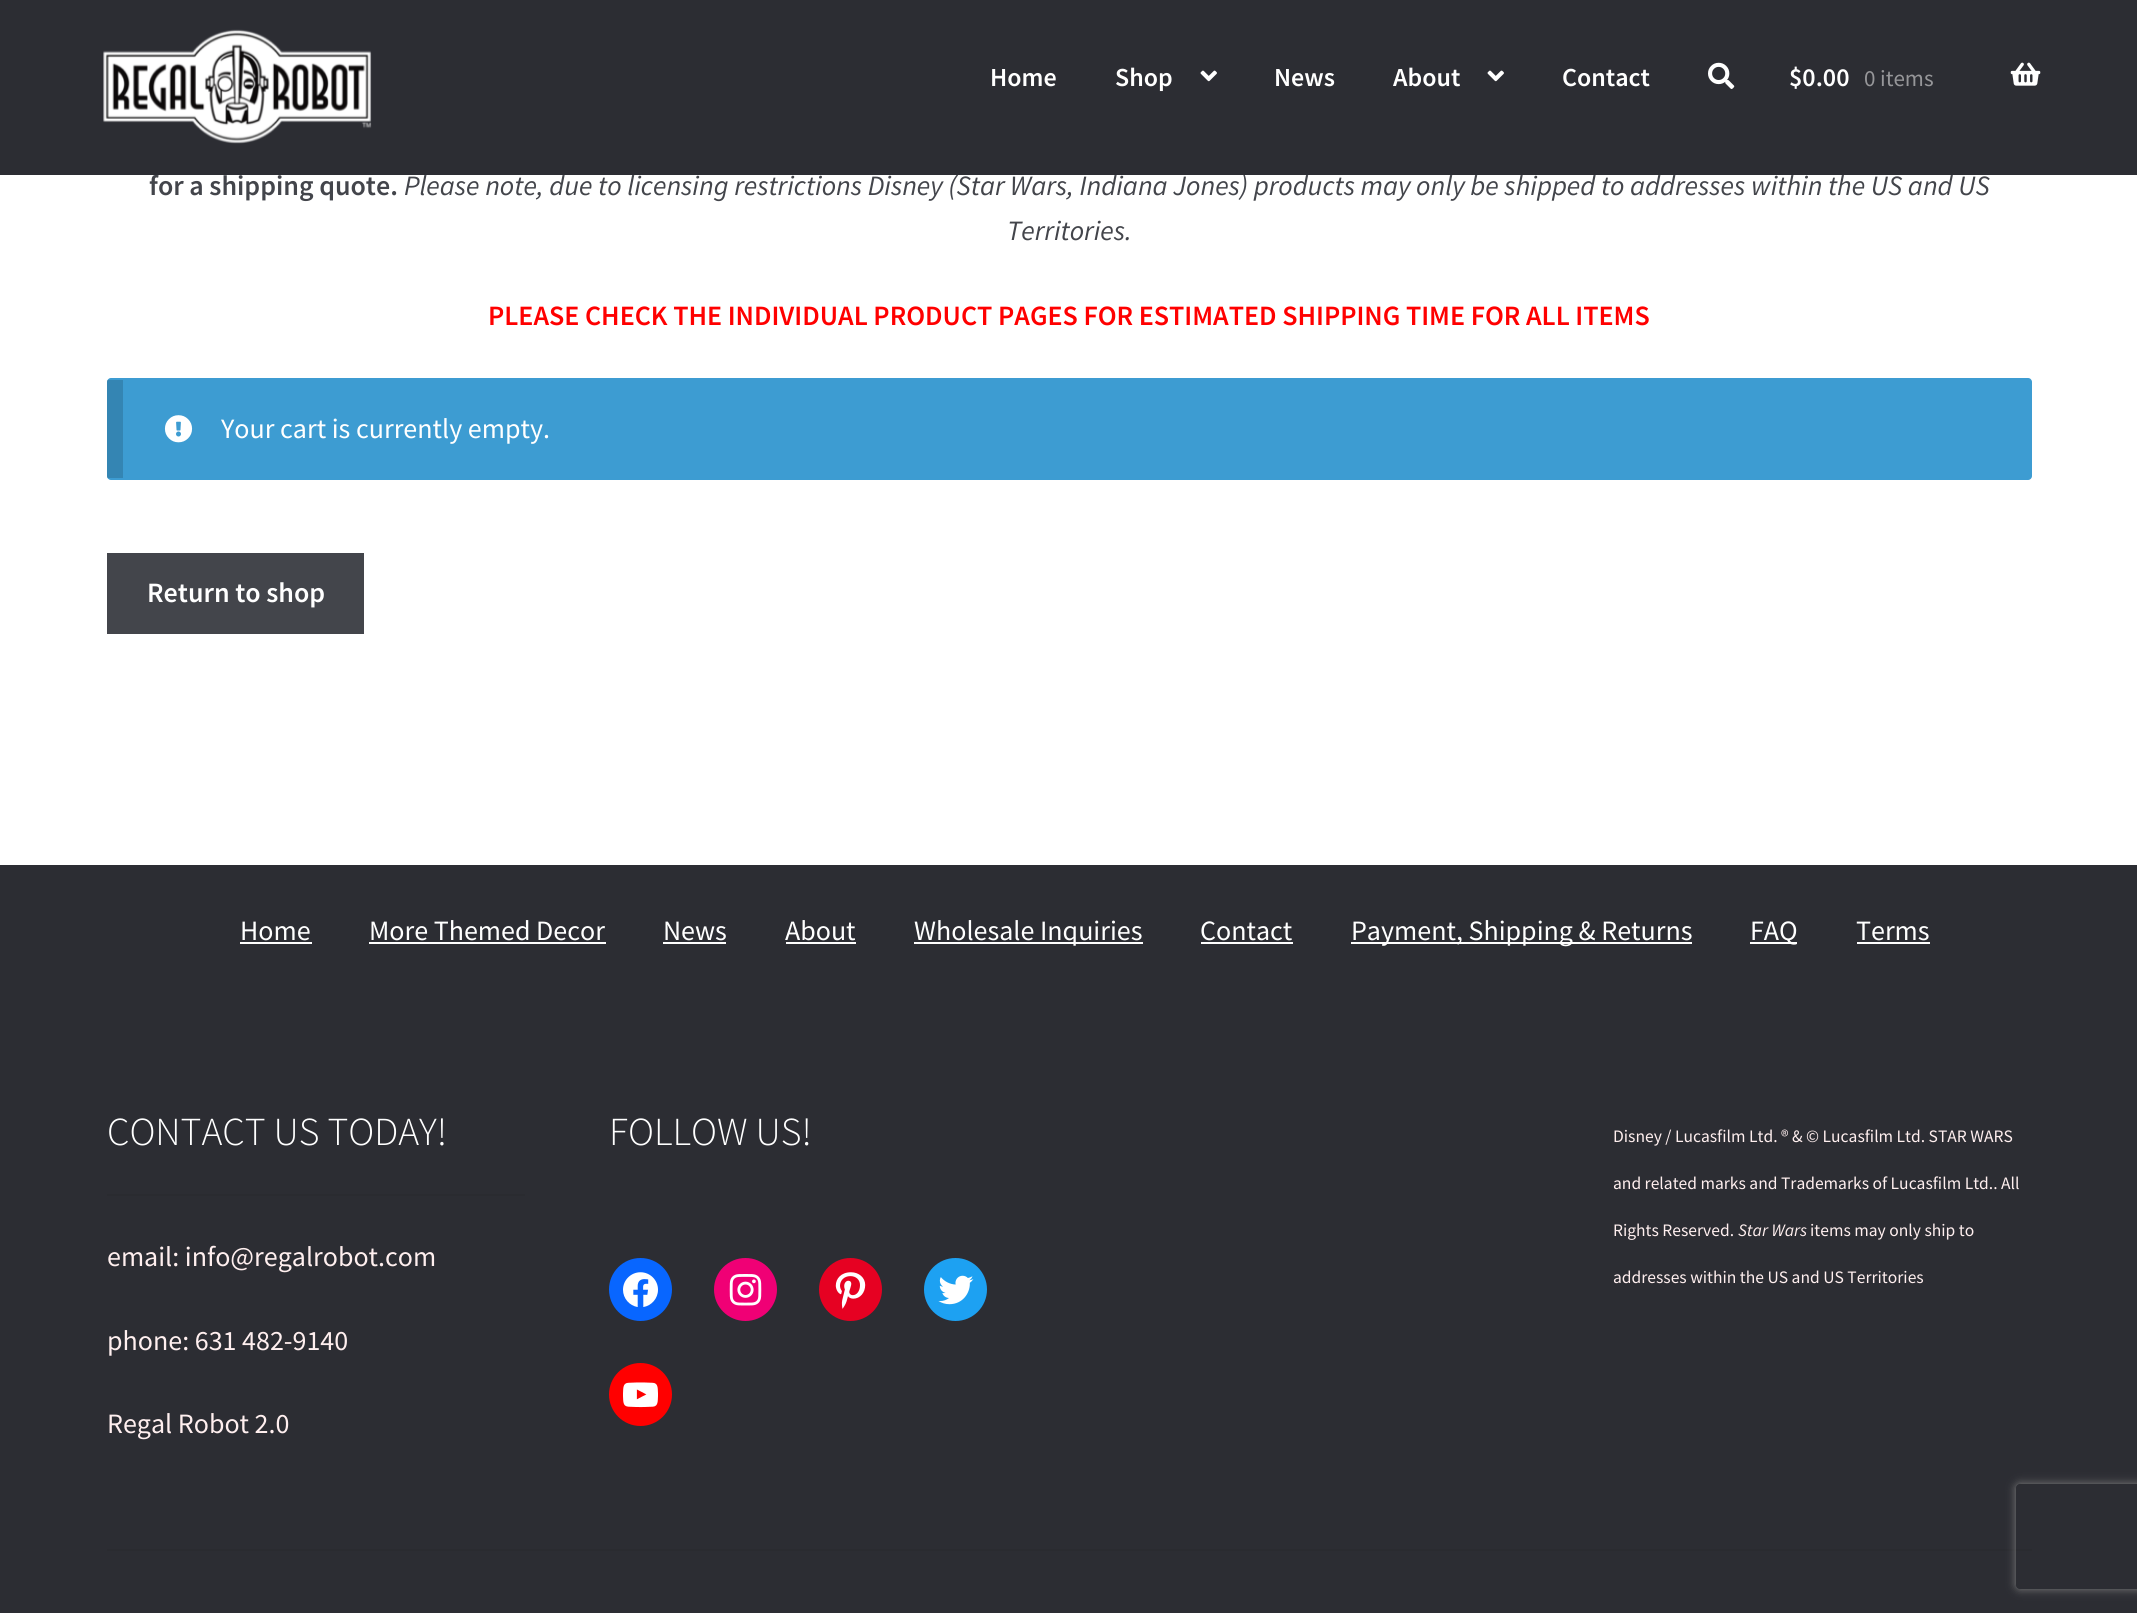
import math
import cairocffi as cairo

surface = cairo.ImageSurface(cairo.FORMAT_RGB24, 2137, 1613)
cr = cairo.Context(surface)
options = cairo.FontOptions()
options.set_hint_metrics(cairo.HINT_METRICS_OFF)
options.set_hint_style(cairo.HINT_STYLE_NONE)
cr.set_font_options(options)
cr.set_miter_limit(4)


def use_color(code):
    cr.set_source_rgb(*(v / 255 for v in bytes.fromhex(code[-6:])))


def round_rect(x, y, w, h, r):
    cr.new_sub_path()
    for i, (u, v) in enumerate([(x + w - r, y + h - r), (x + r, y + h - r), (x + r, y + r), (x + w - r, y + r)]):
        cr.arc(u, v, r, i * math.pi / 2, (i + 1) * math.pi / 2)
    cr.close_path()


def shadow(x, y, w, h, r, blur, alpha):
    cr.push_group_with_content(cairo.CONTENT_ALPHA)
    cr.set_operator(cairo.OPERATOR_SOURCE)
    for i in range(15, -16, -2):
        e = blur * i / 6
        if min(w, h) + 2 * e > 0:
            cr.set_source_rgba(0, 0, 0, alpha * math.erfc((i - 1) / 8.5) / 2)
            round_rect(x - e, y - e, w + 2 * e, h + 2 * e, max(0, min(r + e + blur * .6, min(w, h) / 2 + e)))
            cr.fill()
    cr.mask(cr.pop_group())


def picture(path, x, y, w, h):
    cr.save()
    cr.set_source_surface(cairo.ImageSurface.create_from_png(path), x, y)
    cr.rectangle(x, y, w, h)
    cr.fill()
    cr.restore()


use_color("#ffffff")
cr.paint()
cr.select_font_face("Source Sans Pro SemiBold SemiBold")
cr.set_font_size(28)
use_color("#43454b")
cr.move_to(149, 195)
cr.show_text("for a shipping quote.")
cr.select_font_face("Source Sans Pro", cairo.FONT_SLANT_ITALIC)
cr.move_to(404, 195)
cr.show_text("Please note, due to licensing restrictions Disney (Star Wars, Indiana Jones) products may only be shipped to addresses within the US and US")
use_color("#2c2d33")
cr.rectangle(0, 0, 2137, 175)
cr.fill()
picture("img1.png", 103, 29, 269, 115)
cr.select_font_face("Source Sans Pro SemiBold SemiBold")
cr.set_font_size(26)
use_color("#ffffff")
cr.move_to(990, 86)
cr.show_text("Home")
cr.move_to(1115, 86)
cr.show_text("Shop")
picture("img2.png", 1200, 70, 17, 12)
cr.move_to(1274, 86)
cr.show_text("News")
cr.move_to(1393, 86)
cr.show_text("About")
picture("img2.png", 1487, 70, 17, 12)
cr.move_to(1562, 86)
cr.show_text("Contact")
picture("img3.png", 1708, 62, 27, 27)
cr.move_to(1789, 86)
cr.show_text("$0.00")
cr.select_font_face("Source Sans Pro")
cr.set_font_size(23)
use_color("#969699")
cr.move_to(1864, 86)
cr.show_text("0 items")
picture("img4.png", 2010, 62, 31, 24)
cr.select_font_face("Source Sans Pro", cairo.FONT_SLANT_ITALIC)
cr.set_font_size(28)
use_color("#43454b")
cr.move_to(1007, 240)
cr.show_text("Territories.")
cr.select_font_face("Source Sans Pro SemiBold SemiBold")
use_color("#ff0000")
cr.move_to(488, 325)
cr.show_text("PLEASE CHECK THE INDIVIDUAL PRODUCT PAGES FOR ESTIMATED SHIPPING TIME FOR ALL ITEMS")
use_color("#3d9cd2")
round_rect(107, 378, 1925, 102, 4)
cr.fill()
cr.set_source_rgba(0, 0, 0, 0.15)
cr.rectangle(107, 380, 16, 98)
cr.fill()
picture("img5.png", 164, 415, 29, 28)
cr.select_font_face("Source Sans Pro")
use_color("#ffffff")
cr.move_to(221, 438)
cr.show_text("Your cart is currently empty.")
use_color("#43454b")
cr.rectangle(107, 553, 257, 81)
cr.fill()
cr.select_font_face("Source Sans Pro SemiBold SemiBold")
use_color("#ffffff")
cr.move_to(147, 602)
cr.show_text("Return to shop")
use_color("#2c2d33")
cr.rectangle(0, 865, 2137, 748)
cr.fill()
cr.select_font_face("Source Sans Pro")
use_color("#ffffff")
cr.move_to(240, 940)
cr.show_text("Home")
cr.rectangle(240, 942, 72, 2)
cr.fill()
cr.move_to(369, 940)
cr.show_text("More Themed Decor")
cr.rectangle(369, 942, 237, 2)
cr.fill()
cr.move_to(663, 940)
cr.show_text("News")
cr.rectangle(663, 942, 63, 2)
cr.fill()
cr.move_to(785, 940)
cr.show_text("About")
cr.rectangle(786, 942, 70, 2)
cr.fill()
cr.rectangle(914, 942, 229, 2)
cr.fill()
cr.move_to(914, 940)
cr.show_text("Wholesale Inquiries")
cr.move_to(1200, 940)
cr.show_text("Contact")
cr.rectangle(1201, 942, 92, 2)
cr.fill()
cr.rectangle(1351, 942, 341, 2)
cr.fill()
cr.move_to(1351, 940)
cr.show_text("Payment, Shipping & Returns")
cr.rectangle(1750, 942, 47, 2)
cr.fill()
cr.move_to(1750, 940)
cr.show_text("FAQ")
cr.move_to(1856, 940)
cr.show_text("Terms")
cr.rectangle(1857, 942, 73, 2)
cr.fill()
use_color("#2a2b30")
cr.rectangle(107, 1549, 1925, 2)
cr.fill()
cr.rectangle(107, 1194, 418, 2)
cr.fill()
cr.select_font_face("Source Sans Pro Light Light")
cr.set_font_size(39.75)
use_color("#ffffff")
cr.move_to(107, 1145)
cr.show_text("CONTACT US TODAY!")
cr.select_font_face("Source Sans Pro")
cr.set_font_size(28)
use_color("#ffefef")
cr.move_to(107, 1266)
cr.show_text("email: info@regalrobot.com")
cr.move_to(107, 1350)
cr.show_text("phone: 631 482-9140")
cr.move_to(107, 1433)
cr.show_text("Regal Robot 2.0")
cr.select_font_face("Source Sans Pro Light Light")
cr.set_font_size(39.75)
use_color("#ffffff")
cr.move_to(609, 1145)
cr.show_text("FOLLOW US!")
use_color("#0866ff")
cr.new_path()
cr.arc(640.5, 1289.5, 31.5, 0, 2 * math.pi)
cr.fill()
picture("img6.png", 623, 1272, 35, 35)
use_color("#f00075")
cr.arc(745.5, 1289.5, 31.5, 0, 2 * math.pi)
cr.fill()
picture("img7.png", 729, 1274, 33, 32)
use_color("#e60122")
cr.arc(850.5, 1289.5, 31.5, 0, 2 * math.pi)
cr.fill()
picture("img8.png", 835, 1272, 31, 37)
use_color("#1da1f2")
cr.arc(955.5, 1289.5, 31.5, 0, 2 * math.pi)
cr.fill()
picture("img9.png", 938, 1275, 36, 30)
use_color("#ff0000")
cr.arc(640.5, 1394.5, 31.5, 0, 2 * math.pi)
cr.fill()
picture("img10.png", 623, 1382, 35, 26)
cr.select_font_face("Source Sans Pro")
cr.set_font_size(17.5)
use_color("#ffefef")
cr.move_to(1613, 1142)
cr.show_text("Disney / Lucasfilm Ltd. ® & © Lucasfilm Ltd. STAR WARS")
cr.move_to(1613, 1189)
cr.show_text("and related marks and Trademarks of Lucasfilm Ltd.. All")
cr.move_to(1613, 1236)
cr.show_text("Rights Reserved.")
cr.select_font_face("Source Sans Pro", cairo.FONT_SLANT_ITALIC)
cr.move_to(1738, 1236)
cr.show_text("Star Wars")
cr.select_font_face("Source Sans Pro")
cr.move_to(1810, 1236)
cr.show_text("items may only ship to")
cr.move_to(1613, 1283)
cr.show_text("addresses within the US and US Territories")
cr.save()
cr.set_fill_rule(cairo.FILL_RULE_EVEN_ODD)
cr.new_path()
cr.move_to(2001, 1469)
cr.line_to(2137, 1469)
cr.line_to(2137, 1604)
cr.line_to(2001, 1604)
cr.close_path()
cr.move_to(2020, 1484)
cr.line_to(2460, 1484)
cr.curve_to(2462, 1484, 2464, 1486, 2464, 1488)
cr.line_to(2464, 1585)
cr.curve_to(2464, 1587, 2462, 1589, 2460, 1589)
cr.line_to(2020, 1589)
cr.curve_to(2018, 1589, 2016, 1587, 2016, 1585)
cr.line_to(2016, 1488)
cr.curve_to(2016, 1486, 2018, 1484, 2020, 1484)
cr.close_path()
cr.clip()
use_color("#808080")
shadow(2016, 1484, 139, 105, 4, 4.5, 1)
cr.restore()
surface.write_to_png("result.png")
